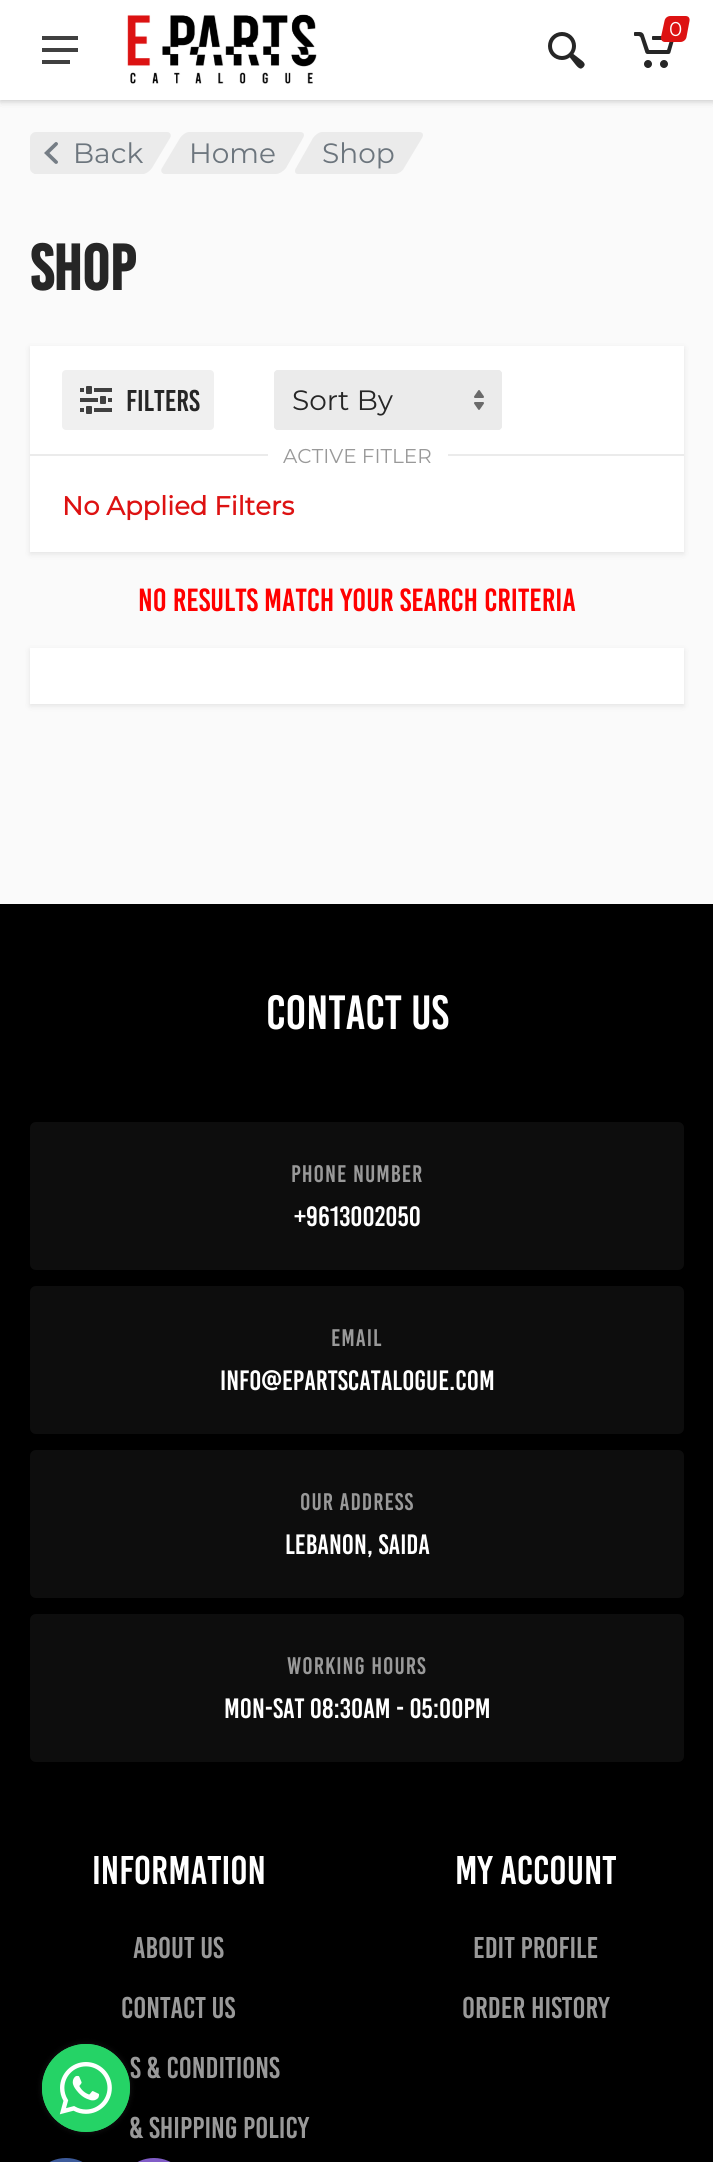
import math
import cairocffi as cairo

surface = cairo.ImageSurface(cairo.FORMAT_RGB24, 713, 2162)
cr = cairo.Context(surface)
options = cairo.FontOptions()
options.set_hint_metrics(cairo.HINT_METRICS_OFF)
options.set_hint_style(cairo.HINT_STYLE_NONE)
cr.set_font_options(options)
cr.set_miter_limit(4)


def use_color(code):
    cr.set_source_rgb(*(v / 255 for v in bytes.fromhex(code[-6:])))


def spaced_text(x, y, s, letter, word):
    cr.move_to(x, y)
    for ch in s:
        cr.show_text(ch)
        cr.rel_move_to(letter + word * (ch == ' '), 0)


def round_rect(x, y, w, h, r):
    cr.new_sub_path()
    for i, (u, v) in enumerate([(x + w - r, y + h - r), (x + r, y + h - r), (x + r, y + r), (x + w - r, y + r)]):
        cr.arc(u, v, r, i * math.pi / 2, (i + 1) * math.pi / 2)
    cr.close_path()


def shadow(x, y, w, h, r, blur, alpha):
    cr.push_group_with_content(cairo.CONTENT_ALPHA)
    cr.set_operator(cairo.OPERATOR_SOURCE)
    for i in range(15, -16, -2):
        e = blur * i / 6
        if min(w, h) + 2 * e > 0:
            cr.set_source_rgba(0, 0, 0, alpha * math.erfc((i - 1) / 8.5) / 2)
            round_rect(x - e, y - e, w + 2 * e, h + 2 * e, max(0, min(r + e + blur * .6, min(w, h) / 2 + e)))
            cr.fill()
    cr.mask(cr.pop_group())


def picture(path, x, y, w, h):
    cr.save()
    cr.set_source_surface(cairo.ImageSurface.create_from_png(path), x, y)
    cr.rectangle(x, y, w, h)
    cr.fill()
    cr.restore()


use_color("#fafafa")
cr.paint()
use_color("#000000")
shadow(0, 2, 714, 100, 0, 3, 0.09)
shadow(0, 2, 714, 100, 0, 3, 0.09)
use_color("#ffffff")
cr.rectangle(0, 0, 713, 100)
cr.fill()
picture("img1.png", 127, 14, 190, 70)
picture("img2.png", 634, 32, 40, 36)
use_color("#dd1212")
cr.new_path()
cr.move_to(670.5, 16)
cr.line_to(685.5, 16)
cr.curve_to(688.5, 16, 690, 18, 689.5, 21)
cr.line_to(686.5, 37)
cr.curve_to(686, 40, 683, 42, 680.5, 42)
cr.line_to(665, 42)
cr.curve_to(662.5, 42, 660.5, 40, 661, 37)
cr.line_to(664.5, 21)
cr.curve_to(665, 18, 667.5, 16, 670.5, 16)
cr.close_path()
cr.fill()
cr.select_font_face("Montserrat")
cr.set_font_size(20)
use_color("#ffffff")
cr.move_to(669, 36)
cr.show_text("0")
picture("img3.png", 548, 32, 37, 37)
use_color("#404040")
cr.new_path()
cr.move_to(42, 52)
cr.line_to(42, 48)
cr.line_to(78, 48)
cr.line_to(78, 52)
cr.close_path()
cr.move_to(42, 36)
cr.line_to(78, 36)
cr.line_to(78, 40)
cr.line_to(42, 40)
cr.close_path()
cr.move_to(70, 64)
cr.line_to(42, 64)
cr.line_to(42, 60)
cr.line_to(70, 60)
cr.close_path()
cr.fill()
use_color("#ebebeb")
cr.new_path()
cr.move_to(60, 132)
cr.line_to(167, 132)
cr.curve_to(170, 132, 172, 135, 170, 138)
cr.line_to(152, 168)
cr.curve_to(150, 171, 146, 174, 143, 174)
cr.line_to(36, 174)
cr.curve_to(33, 174, 32, 171, 33, 168)
cr.line_to(51, 138)
cr.curve_to(53, 135, 57, 132, 60, 132)
cr.close_path()
cr.fill()
round_rect(30, 132, 118, 42, 6)
cr.fill()
picture("img4.png", 44, 142, 14, 22)
cr.set_font_size(28)
use_color("#6c757d")
cr.move_to(73, 163)
cr.show_text("Back")
use_color("#ebebeb")
cr.new_path()
cr.move_to(189, 132)
cr.line_to(300, 132)
cr.curve_to(304, 132, 305, 135, 303, 138)
cr.line_to(286, 168)
cr.curve_to(284, 171, 279, 174, 276, 174)
cr.line_to(165, 174)
cr.curve_to(162, 174, 160, 171, 162, 168)
cr.line_to(180, 138)
cr.curve_to(182, 135, 186, 132, 189, 132)
cr.close_path()
cr.fill()
use_color("#6c757d")
cr.move_to(189, 163)
cr.show_text("Home")
use_color("#ebebeb")
cr.new_path()
cr.move_to(322, 132)
cr.line_to(419, 132)
cr.curve_to(423, 132, 424, 135, 422, 138)
cr.line_to(404, 168)
cr.curve_to(403, 171, 398, 174, 395, 174)
cr.line_to(298, 174)
cr.curve_to(295, 174, 294, 171, 296, 168)
cr.line_to(313, 138)
cr.curve_to(315, 135, 319, 132, 322, 132)
cr.close_path()
cr.fill()
use_color("#6c757d")
cr.move_to(322, 163)
cr.show_text("Shop")
cr.select_font_face("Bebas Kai", cairo.FONT_SLANT_NORMAL, cairo.FONT_WEIGHT_BOLD)
cr.set_font_size(64)
use_color("#262626")
cr.move_to(30, 290)
cr.show_text("Shop")
use_color("#000000")
shadow(30, 348, 654, 206, 0, 3, 0.09)
use_color("#ffffff")
cr.rectangle(30, 346, 654, 206)
cr.fill()
use_color("#f0f0f0")
round_rect(62, 370, 152, 60, 4)
cr.fill()
picture("img5.png", 80, 386, 32, 28)
cr.select_font_face("Bebas Kai")
cr.set_font_size(30)
use_color("#262626")
cr.move_to(126, 411)
cr.show_text("Filters")
use_color("#ebebeb")
round_rect(274, 370, 228, 60, 4)
cr.fill()
picture("img6.png", 474, 390, 10, 20)
round_rect(275, 371, 226, 58, 3)
cr.stroke()
cr.select_font_face("Montserrat")
cr.set_font_size(28)
use_color("#262626")
cr.move_to(292, 410)
cr.show_text("Sort By")
use_color("#ebebeb")
cr.rectangle(30, 454, 654, 2)
cr.fill()
use_color("#ffffff")
cr.rectangle(268, 454, 180, 2)
cr.fill()
cr.set_font_size(20)
use_color("#999999")
cr.move_to(283, 463)
cr.show_text("ACTIVE FITLER")
cr.select_font_face("Montserrat", cairo.FONT_SLANT_NORMAL, cairo.FONT_WEIGHT_BOLD)
cr.set_font_size(26)
use_color("#dd1212")
cr.move_to(62, 515)
cr.show_text("No Applied Filters")
cr.select_font_face("Bebas Kai")
cr.set_font_size(32)
use_color("#ff0000")
cr.move_to(138, 611)
cr.show_text("No results match your search criteria")
use_color("#000000")
shadow(30, 650, 654, 56, 0, 3, 0.09)
use_color("#ffffff")
cr.rectangle(30, 648, 654, 56)
cr.fill()
use_color("#000000")
cr.rectangle(0, 904, 713, 1258)
cr.fill()
cr.set_font_size(48)
use_color("#ffffff")
cr.move_to(266, 1029)
cr.show_text("Contact Us")
use_color("#0d0d0d")
round_rect(30, 1122, 654, 148, 6)
cr.fill()
cr.set_font_size(24)
use_color("#999999")
spaced_text(291, 1182, "PHONE NUMBER", 1, 0)
cr.set_font_size(28)
use_color("#ffffff")
cr.move_to(294, 1226)
cr.show_text("+9613002050")
use_color("#0d0d0d")
round_rect(30, 1286, 654, 148, 6)
cr.fill()
cr.set_font_size(24)
use_color("#999999")
spaced_text(331, 1346, "EMAIL", 1, 0)
cr.set_font_size(28)
use_color("#ffffff")
cr.move_to(220, 1390)
cr.show_text("info@epartscatalogue.com")
use_color("#0d0d0d")
round_rect(30, 1450, 654, 148, 6)
cr.fill()
cr.set_font_size(24)
use_color("#999999")
spaced_text(300, 1510, "OUR ADDRESS", 1, 0)
cr.set_font_size(28)
use_color("#ffffff")
cr.move_to(285, 1554)
cr.show_text("Lebanon, Saida")
use_color("#0d0d0d")
round_rect(30, 1614, 654, 148, 6)
cr.fill()
cr.set_font_size(24)
use_color("#999999")
spaced_text(287, 1674, "WORKING HOURS", 1, 0)
cr.set_font_size(28)
use_color("#ffffff")
cr.move_to(224, 1718)
cr.show_text("Mon-Sat 08:30am - 05:00pm")
cr.set_font_size(40)
cr.move_to(92, 1884)
cr.show_text("Information")
cr.set_font_size(30)
use_color("#999999")
cr.move_to(133, 1958)
cr.show_text("About Us")
cr.move_to(121, 2018)
cr.show_text("Contact Us")
cr.move_to(130, 2078)
cr.show_text("s & Conditions")
cr.move_to(129, 2138)
cr.show_text("& Shipping Policy")
cr.set_font_size(40)
use_color("#ffffff")
cr.move_to(455, 1884)
cr.show_text("My Account")
cr.set_font_size(30)
use_color("#999999")
cr.move_to(473, 1958)
cr.show_text("Edit Profile")
cr.move_to(462, 2018)
cr.show_text("Order History")
use_color("#3c5a99")
round_rect(30, 2158, 72, 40, 36)
cr.fill()
use_color("#815dc7")
round_rect(118, 2158, 72, 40, 36)
cr.fill()
use_color("#3c3c3c")
shadow(42, 2044, 88, 88, 44, 3, 0.4)
use_color("#25d366")
cr.arc(86, 2088, 44, 0, 2 * math.pi)
cr.fill()
picture("img7.png", 42, 2044, 88, 88)
surface.write_to_png("result.png")
